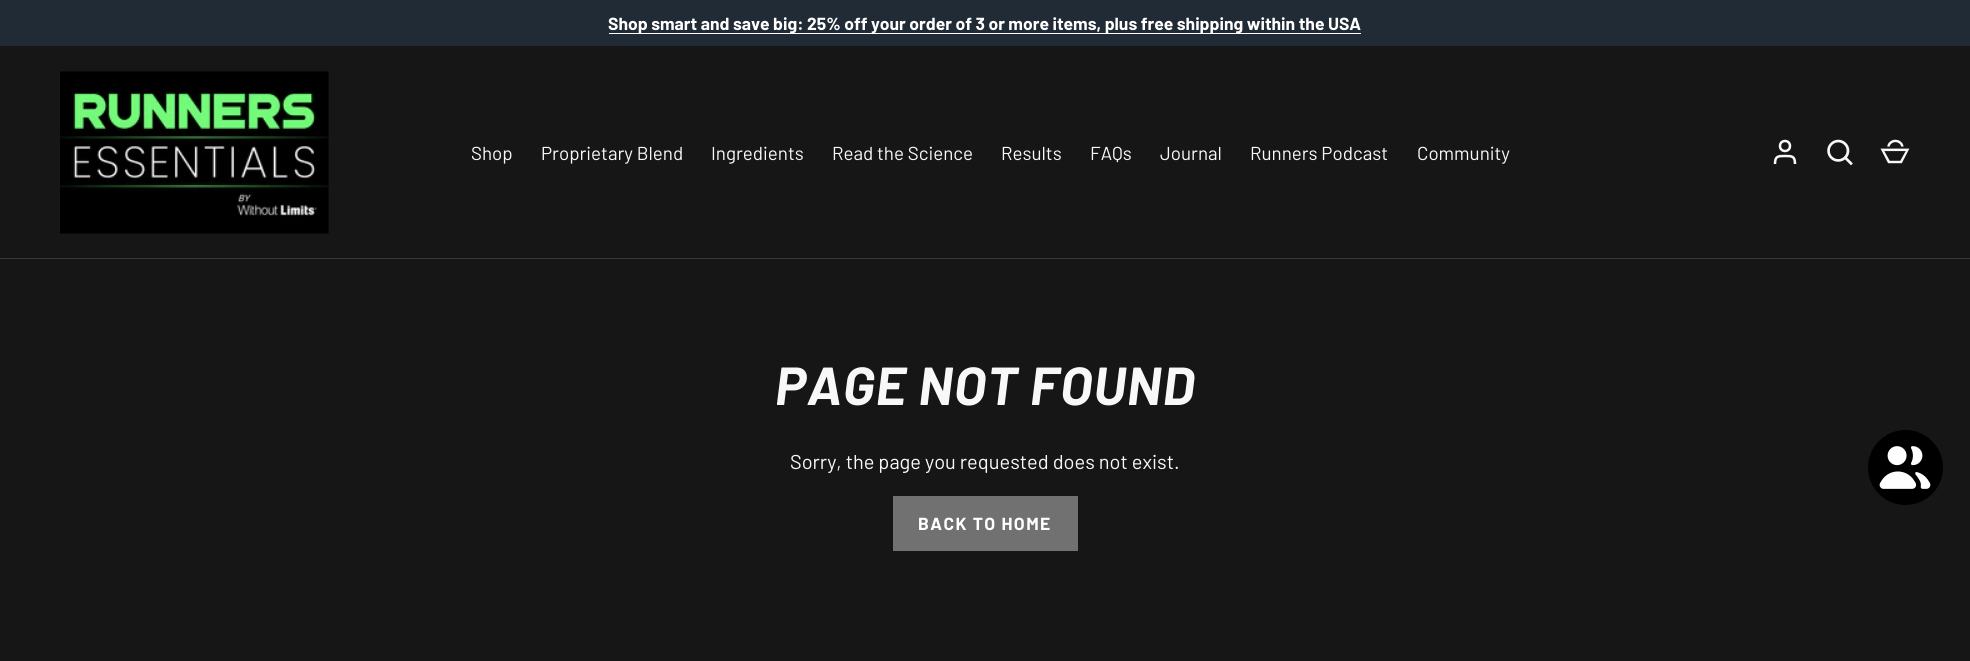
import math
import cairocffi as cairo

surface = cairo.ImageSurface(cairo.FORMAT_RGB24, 1970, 661)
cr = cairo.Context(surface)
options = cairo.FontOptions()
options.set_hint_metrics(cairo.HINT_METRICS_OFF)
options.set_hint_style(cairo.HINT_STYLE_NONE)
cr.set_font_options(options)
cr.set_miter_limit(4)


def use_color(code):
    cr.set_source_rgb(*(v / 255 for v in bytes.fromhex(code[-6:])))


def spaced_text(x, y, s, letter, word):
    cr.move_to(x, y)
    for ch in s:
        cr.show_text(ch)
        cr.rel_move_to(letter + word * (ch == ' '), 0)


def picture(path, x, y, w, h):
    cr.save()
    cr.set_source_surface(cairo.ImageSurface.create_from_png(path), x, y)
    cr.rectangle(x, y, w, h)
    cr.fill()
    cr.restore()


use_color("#161616")
cr.paint()
use_color("#212b36")
cr.rectangle(0, 0, 1970, 46)
cr.fill()
use_color("#ffffff")
cr.rectangle(609, 33, 752, 1)
cr.fill()
cr.select_font_face("Barlow", cairo.FONT_SLANT_NORMAL, cairo.FONT_WEIGHT_BOLD)
cr.set_font_size(17.5)
cr.move_to(608, 30)
cr.show_text("Shop smart and save big: 25% off your order of 3 or more items, plus free shipping within the USA")
picture("img1.png", 60, 71, 269, 163)
cr.select_font_face("Barlow")
cr.set_font_size(18.75)
use_color("#f8f8f8")
cr.move_to(471, 160)
cr.show_text("Shop")
cr.move_to(541, 160)
cr.show_text("Proprietary Blend")
cr.move_to(711, 160)
cr.show_text("Ingredients")
cr.move_to(832, 160)
cr.show_text("Read the Science")
cr.move_to(1001, 160)
cr.show_text("Results")
cr.move_to(1090, 160)
cr.show_text("FAQs")
cr.move_to(1160, 160)
cr.show_text("Journal")
cr.move_to(1250, 160)
cr.show_text("Runners Podcast")
cr.move_to(1417, 160)
cr.show_text("Community")
cr.new_path()
cr.arc(1785, 146, 5, 0, 2 * math.pi)
cr.set_line_width(2.5)
cr.stroke()
cr.new_path()
cr.move_to(1795, 164)
cr.curve_to(1795, 156, 1792, 156, 1785, 156)
cr.curve_to(1778, 156, 1775, 156, 1775, 164)
cr.stroke()
picture("img2.png", 1827, 139, 26, 27)
picture("img3.png", 1880, 139, 30, 25)
use_color("#383838")
cr.rectangle(0, 258, 1970, 1)
cr.fill()
cr.select_font_face("Barlow", cairo.FONT_SLANT_ITALIC, cairo.FONT_WEIGHT_BOLD)
cr.set_font_size(53.5)
use_color("#f8f8f8")
spaced_text(775, 405, "PAGE NOT FOUND", 1, 0)
cr.select_font_face("Barlow")
cr.set_font_size(20)
cr.move_to(790, 469)
cr.show_text("Sorry, the page you requested does not exist.")
use_color("#717171")
cr.rectangle(893, 496, 185, 55)
cr.fill()
cr.select_font_face("Barlow", cairo.FONT_SLANT_NORMAL, cairo.FONT_WEIGHT_BOLD)
cr.set_font_size(17.5)
use_color("#ffffff")
spaced_text(918, 530, "BACK TO HOME", 1.4, 0)
use_color("#000000")
cr.new_path()
cr.arc(1905.5, 467.5, 37.5, 0, 2 * math.pi)
cr.fill()
picture("img4.png", 1879, 446, 52, 43)
surface.write_to_png("result.png")
